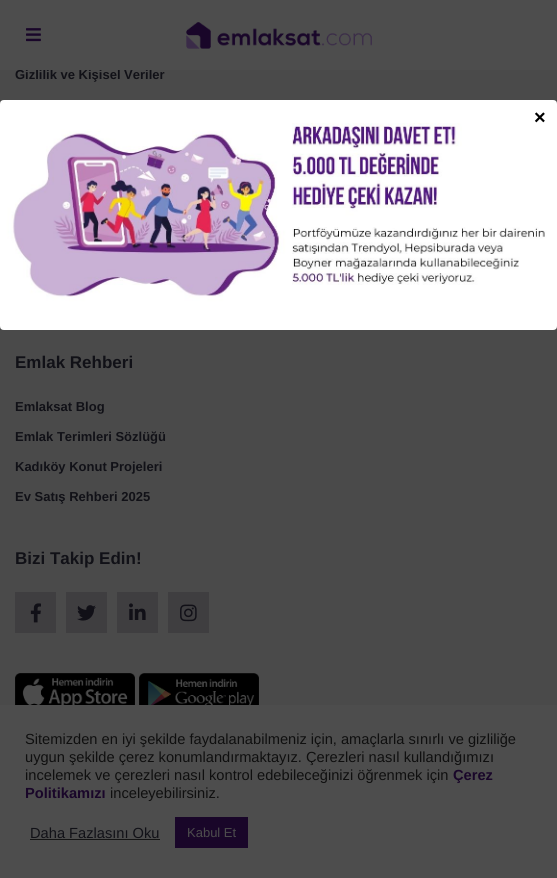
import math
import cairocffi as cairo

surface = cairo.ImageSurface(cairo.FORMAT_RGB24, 557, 878)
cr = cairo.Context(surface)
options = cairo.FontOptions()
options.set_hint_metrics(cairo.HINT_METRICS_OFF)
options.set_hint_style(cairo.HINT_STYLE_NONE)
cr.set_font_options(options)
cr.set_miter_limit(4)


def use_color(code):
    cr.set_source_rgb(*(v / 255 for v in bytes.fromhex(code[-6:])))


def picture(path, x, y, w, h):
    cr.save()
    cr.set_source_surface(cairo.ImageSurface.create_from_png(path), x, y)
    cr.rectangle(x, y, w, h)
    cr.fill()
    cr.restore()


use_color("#4a4a4a")
cr.paint()
cr.select_font_face("Liberation Sans", cairo.FONT_SLANT_NORMAL, cairo.FONT_WEIGHT_BOLD)
cr.set_font_size(13)
use_color("#111117")
cr.move_to(15, 79)
cr.show_text("Gizlilik ve Kişisel Veriler")
use_color("#4d4d4d")
cr.rectangle(0, 0, 557, 70)
cr.fill()
picture("img1.png", 26, 28, 15, 14)
picture("img2.png", 186, 22, 186, 27)
cr.set_font_size(17)
use_color("#111117")
cr.move_to(15, 368)
cr.show_text("Emlak Rehberi")
cr.set_font_size(13)
cr.move_to(15, 411)
cr.show_text("Emlaksat Blog")
cr.move_to(15, 441)
cr.show_text("Emlak Terimleri Sözlüğü")
cr.move_to(15, 471)
cr.show_text("Kadıköy Konut Projeleri")
cr.move_to(15, 501)
cr.show_text("Ev Satış Rehberi 2025")
cr.set_font_size(17)
cr.move_to(15, 564)
cr.show_text("Bizi Takip Edin!")
use_color("#3f3e40")
cr.rectangle(15, 592, 41, 41)
cr.fill()
picture("img3.png", 30, 603, 11, 20)
cr.rectangle(66, 592, 41, 41)
cr.fill()
picture("img4.png", 77, 605, 19, 16)
cr.rectangle(117, 592, 41, 41)
cr.fill()
picture("img5.png", 129, 603, 17, 17)
cr.rectangle(168, 592, 41, 41)
cr.fill()
picture("img6.png", 180, 604, 17, 18)
picture("img7.png", 15, 673, 120, 32)
picture("img8.png", 139, 673, 120, 32)
picture("img9.png", 0, 100, 557, 230)
cr.set_font_size(20)
use_color("#000000")
cr.move_to(534, 124)
cr.show_text("×")
use_color("#4d4d4d")
cr.rectangle(0, 705, 557, 173)
cr.fill()
cr.select_font_face("Liberation Sans")
cr.set_font_size(14.65)
use_color("#0f0f0f")
cr.move_to(25, 744)
cr.show_text("Sitemizden en iyi şekilde faydalanabilmeniz için, amaçlarla sınırlı ve gizliliğe")
cr.move_to(25, 762)
cr.show_text("uygun şekilde çerez konumlandırmaktayız. Çerezleri nasıl kullandığımızı")
cr.move_to(25, 780)
cr.show_text("incelemek ve çerezleri nasıl kontrol edebileceğinizi öğrenmek için")
cr.select_font_face("Liberation Sans", cairo.FONT_SLANT_NORMAL, cairo.FONT_WEIGHT_BOLD)
use_color("#190629")
cr.move_to(453, 780)
cr.show_text("Çerez")
cr.move_to(25, 798)
cr.show_text("Politikamızı")
cr.select_font_face("Liberation Sans")
use_color("#0f0f0f")
cr.move_to(110, 798)
cr.show_text("inceleyebilirsiniz.")
use_color("#111117")
cr.move_to(30, 838)
cr.show_text("Daha Fazlasını Oku")
use_color("#141414")
cr.rectangle(30, 839, 130, 1)
cr.fill()
use_color("#190629")
cr.rectangle(175, 817, 73, 31)
cr.fill()
cr.set_font_size(13)
use_color("#4d4d4d")
cr.move_to(187, 837)
cr.show_text("Kabul Et")
surface.write_to_png("result.png")
